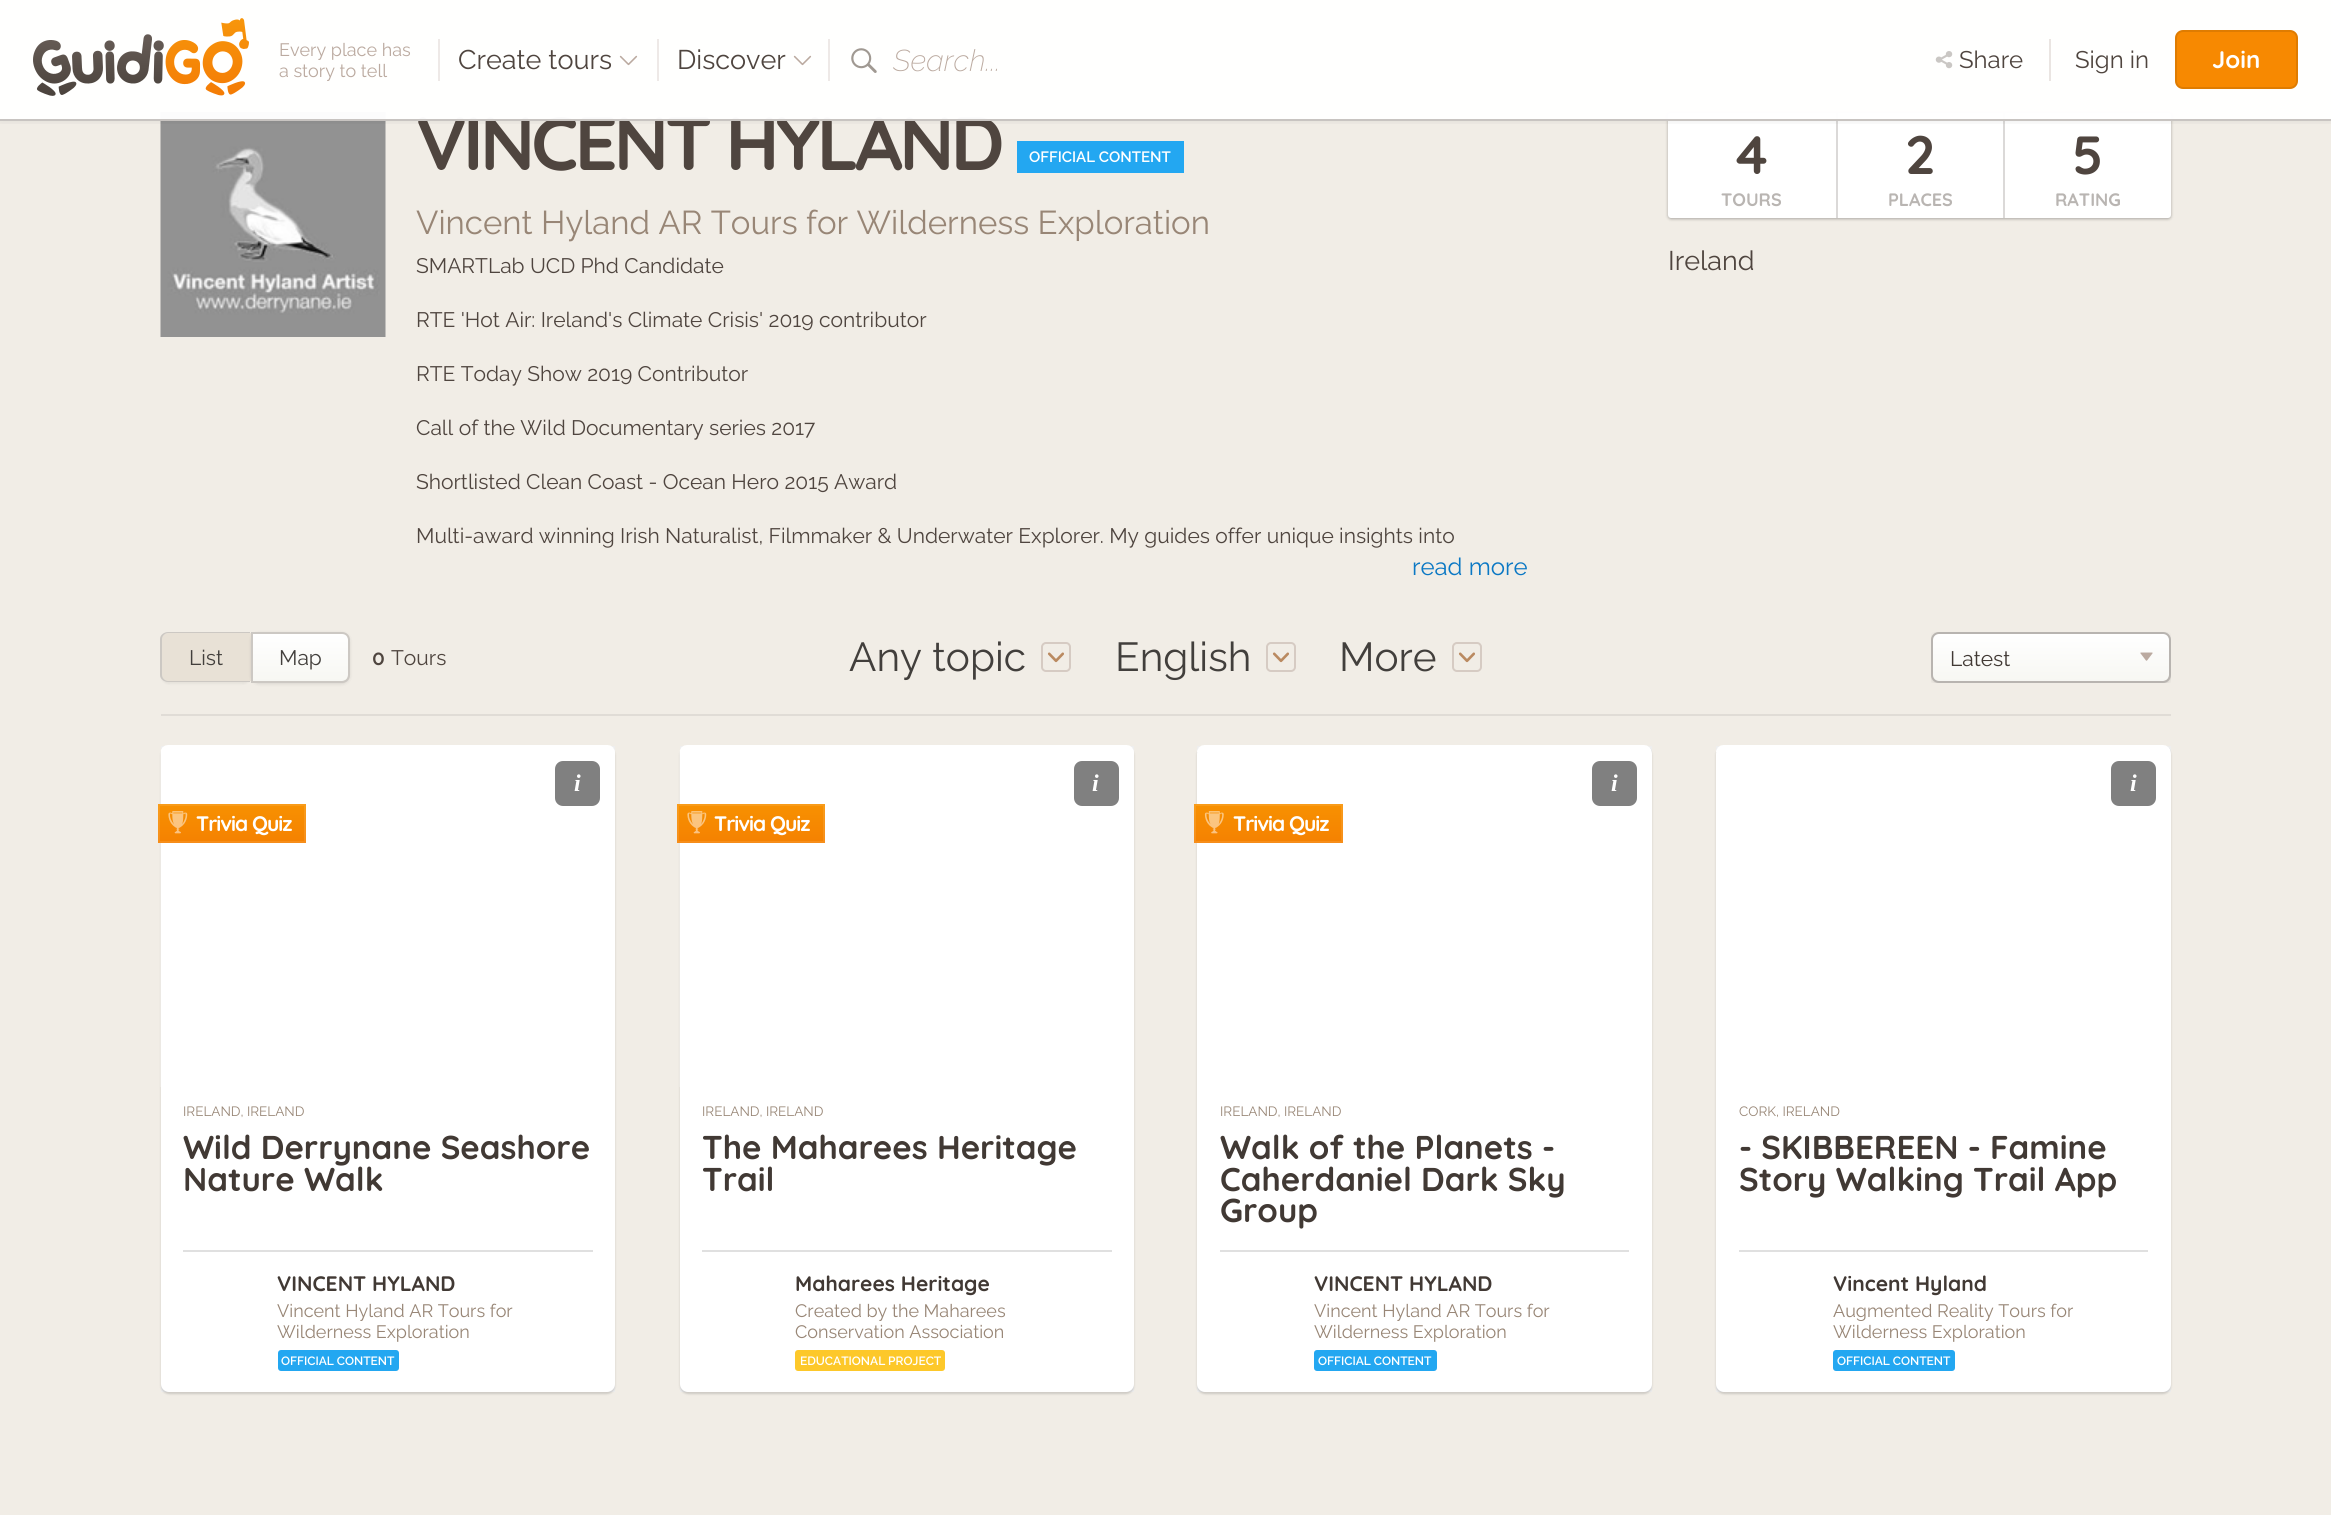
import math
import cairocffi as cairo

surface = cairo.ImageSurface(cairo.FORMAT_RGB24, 2331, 1515)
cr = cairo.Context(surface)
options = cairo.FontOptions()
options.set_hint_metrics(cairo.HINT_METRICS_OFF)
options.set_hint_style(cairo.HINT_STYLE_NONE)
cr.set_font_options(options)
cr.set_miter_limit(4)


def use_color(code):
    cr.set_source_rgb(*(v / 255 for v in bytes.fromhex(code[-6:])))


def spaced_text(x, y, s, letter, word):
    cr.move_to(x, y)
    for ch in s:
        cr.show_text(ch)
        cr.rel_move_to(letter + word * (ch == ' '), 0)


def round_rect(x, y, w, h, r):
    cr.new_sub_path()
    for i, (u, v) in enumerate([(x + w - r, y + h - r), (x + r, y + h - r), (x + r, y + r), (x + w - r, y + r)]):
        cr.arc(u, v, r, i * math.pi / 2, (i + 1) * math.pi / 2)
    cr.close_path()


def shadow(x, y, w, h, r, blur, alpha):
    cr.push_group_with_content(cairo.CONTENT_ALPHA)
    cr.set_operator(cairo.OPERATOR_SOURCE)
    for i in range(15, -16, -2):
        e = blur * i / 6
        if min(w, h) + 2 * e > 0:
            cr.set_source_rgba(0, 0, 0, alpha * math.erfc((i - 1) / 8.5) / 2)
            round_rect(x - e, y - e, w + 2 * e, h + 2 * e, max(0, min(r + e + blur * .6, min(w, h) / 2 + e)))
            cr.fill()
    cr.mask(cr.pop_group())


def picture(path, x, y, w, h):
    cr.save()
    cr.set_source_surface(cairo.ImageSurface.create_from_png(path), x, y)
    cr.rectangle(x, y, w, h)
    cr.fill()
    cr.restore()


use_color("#f1ede6")
cr.paint()
picture("img5.png", 160, 112, 226, 225)
use_color("#000000")
shadow(1668, 114, 503, 105, 3, 1.5, 0.3)
use_color("#ffffff")
round_rect(1668, 113, 503, 105, 3)
cr.fill()
use_color("#dbd9d8")
cr.rectangle(1836, 113, 2, 105)
cr.fill()
cr.rectangle(2003, 113, 2, 105)
cr.fill()
cr.save()
cr.rectangle(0, 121, 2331, 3)
cr.clip()
use_color("#000000")
shadow(0, 2, 2331, 120, 0, 4, 0.07)
cr.restore()
cr.select_font_face("Quicksand Light")
cr.set_font_size(75)
use_color("#4f453f")
spaced_text(416, 170, "VINCENT HYLAND", -3.75, 0)
cr.set_source_rgba(1, 1, 1, 0.97)
cr.rectangle(0, 0, 2331, 119)
cr.fill()
use_color("#c8c4c1")
cr.rectangle(0, 119, 2331, 2)
cr.fill()
picture("img1.png", 33, 18, 216, 78)
cr.select_font_face("Raleway")
cr.set_font_size(18)
use_color("#bbaaa0")
cr.move_to(279, 56)
cr.show_text("Every place has")
cr.move_to(279, 77)
cr.show_text("a story to tell")
use_color("#eee9e7")
cr.rectangle(438, 39, 2, 42)
cr.fill()
cr.set_font_size(27)
use_color("#4f453f")
cr.move_to(458, 69)
cr.show_text("Create tours")
picture("img2.png", 619, 55, 19, 11)
use_color("#eee9e7")
cr.rectangle(657, 39, 2, 42)
cr.fill()
use_color("#4f453f")
cr.move_to(677, 69)
cr.show_text("Discover")
picture("img2.png", 793, 55, 19, 11)
use_color("#eee9e7")
cr.rectangle(828, 39, 2, 42)
cr.fill()
picture("img3.png", 851, 48, 26, 25)
cr.select_font_face("Raleway Thin", cairo.FONT_SLANT_ITALIC)
cr.set_font_size(30)
use_color("#bbaaa0")
cr.move_to(893, 71)
cr.show_text("Search...")
use_color("#eae5e2")
cr.rectangle(2049, 39, 2, 42)
cr.fill()
picture("img4.png", 1935, 51, 18, 18)
cr.select_font_face("Raleway")
cr.set_font_size(24)
use_color("#4f453f")
cr.move_to(1959, 68)
cr.show_text("Share")
cr.move_to(2075, 68)
cr.show_text("Sign in")
use_color("#f78901")
round_rect(2175, 30, 123, 59, 8)
cr.fill()
round_rect(2176, 31, 121, 57, 7)
cr.set_source_rgba(0, 0, 0, 0.1)
cr.stroke()
cr.select_font_face("Quicksand Light")
use_color("#ffffff")
cr.move_to(2212, 68)
cr.show_text("Join")
use_color("#23a7f1")
cr.rectangle(1017, 141, 167, 32)
cr.fill()
cr.select_font_face("Raleway SemiBold")
cr.set_font_size(15)
use_color("#ffffff")
cr.move_to(1029, 162)
cr.show_text("OFFICIAL CONTENT")
cr.select_font_face("Raleway")
cr.set_font_size(33)
use_color("#988676")
cr.move_to(416, 234)
cr.show_text("Vincent Hyland AR Tours for Wilderness Exploration")
cr.set_font_size(21)
use_color("#4f453f")
cr.move_to(416, 273)
cr.show_text("SMARTLab UCD Phd Candidate")
cr.move_to(416, 327)
cr.show_text("RTE 'Hot Air: Ireland's Climate Crisis' 2019 contributor")
cr.move_to(416, 381)
cr.show_text("RTE Today Show 2019 Contributor")
cr.move_to(416, 435)
cr.show_text("Call of the Wild Documentary series 2017")
cr.move_to(416, 489)
cr.show_text("Shortlisted Clean Coast - Ocean Hero 2015 Award")
cr.move_to(416, 543)
cr.show_text("Multi-award winning Irish Naturalist, Filmmaker & Underwater Explorer. My guides offer unique insights into")
cr.set_font_size(24)
use_color("#0b78c4")
cr.move_to(1412, 575)
cr.show_text("read more")
cr.select_font_face("Quicksand Light")
cr.set_font_size(54)
use_color("#4f453f")
cr.move_to(1736, 174)
cr.show_text("4")
cr.set_font_size(18)
use_color("#b9b5b2")
cr.move_to(1721, 206)
cr.show_text("TOURS")
cr.set_font_size(54)
use_color("#4f453f")
cr.move_to(1905, 174)
cr.show_text("2")
cr.set_font_size(18)
use_color("#b9b5b2")
cr.move_to(1888, 206)
cr.show_text("PLACES")
cr.set_font_size(54)
use_color("#4f453f")
cr.move_to(2072, 174)
cr.show_text("5")
cr.set_font_size(18)
use_color("#b9b5b2")
cr.move_to(2055, 206)
cr.show_text("RATING")
cr.select_font_face("Raleway")
cr.set_font_size(27)
use_color("#4f453f")
cr.move_to(1668, 270)
cr.show_text("Ireland")
use_color("#e0dcd6")
cr.rectangle(161, 714, 2010, 2)
cr.fill()
cr.set_font_size(40.5)
use_color("#423f3c")
cr.move_to(849, 671)
cr.show_text("Any topic")
round_rect(1042, 643, 28, 28, 4)
use_color("#d6cbc3")
cr.stroke()
picture("img6.png", 1047, 652, 17, 11)
use_color("#423f3c")
cr.move_to(1115, 671)
cr.show_text("English")
round_rect(1267, 643, 28, 28, 4)
use_color("#d6cbc3")
cr.stroke()
picture("img6.png", 1272, 652, 17, 11)
use_color("#423f3c")
cr.move_to(1339, 671)
cr.show_text("More")
round_rect(1453, 643, 28, 28, 4)
use_color("#d6cbc3")
cr.stroke()
picture("img6.png", 1458, 652, 17, 11)
use_color("#000000")
shadow(161, 633, 90, 51, 8, 1, 0.05)
use_color("#e8e1d6")
cr.new_path()
cr.move_to(168, 633)
cr.line_to(251, 633)
cr.line_to(251, 681)
cr.line_to(168, 681)
cr.curve_to(164.5, 681, 162, 678.5, 162, 675)
cr.line_to(162, 639)
cr.curve_to(162, 635.5, 164.5, 633, 168, 633)
cr.close_path()
cr.fill()
use_color("#ccc8c3")
cr.set_fill_rule(cairo.FILL_RULE_EVEN_ODD)
cr.new_path()
cr.move_to(168, 632)
cr.line_to(250, 632)
cr.line_to(250, 682)
cr.line_to(168, 682)
cr.curve_to(164, 682, 160, 679, 160, 675)
cr.line_to(160, 639)
cr.curve_to(160, 635, 164, 632, 168, 632)
cr.close_path()
cr.move_to(168, 633)
cr.line_to(250, 633)
cr.line_to(250, 681)
cr.line_to(168, 681)
cr.curve_to(165, 681, 162, 678, 162, 675)
cr.line_to(162, 639)
cr.curve_to(162, 636, 165, 633, 168, 633)
cr.close_path()
cr.fill()
cr.set_font_size(21)
use_color("#423f3c")
cr.move_to(189, 665)
cr.show_text("List")
use_color("#000000")
shadow(251, 633, 99, 51, 8, 1.5, 0.1)
gradient = cairo.LinearGradient(300, 681, 300, 633)
gradient.add_color_stop_rgba(0, 0.969, 0.969, 0.953, 1)
gradient.add_color_stop_rgba(1, 1, 1, 1, 1)
cr.set_source(gradient)
cr.new_path()
cr.move_to(252, 633)
cr.line_to(342, 633)
cr.curve_to(345.5, 633, 348, 635.5, 348, 639)
cr.line_to(348, 675)
cr.curve_to(348, 678.5, 345.5, 681, 342, 681)
cr.line_to(252, 681)
cr.close_path()
cr.fill()
cr.new_path()
cr.move_to(252, 633)
cr.line_to(342, 633)
cr.curve_to(346, 633, 349, 636, 349, 640)
cr.line_to(349, 675)
cr.curve_to(349, 679, 346, 682, 342, 682)
cr.line_to(252, 682)
cr.close_path()
use_color("#ccc8c3")
cr.stroke()
use_color("#423f3c")
cr.move_to(279, 665)
cr.show_text("Map")
cr.select_font_face("Raleway SemiBold")
use_color("#4f453f")
cr.move_to(372, 665)
cr.show_text("0")
cr.select_font_face("Raleway")
cr.move_to(391, 665)
cr.show_text("Tours")
cr.save()
cr.set_fill_rule(cairo.FILL_RULE_WINDING)
cr.rectangle(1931, 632, 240, 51)
cr.clip()
use_color("#000000")
shadow(1931, 633, 240, 51, 8, 2, 0.15)
cr.restore()
gradient = cairo.LinearGradient(2051, 681, 2051, 633)
gradient.add_color_stop_rgba(0, 0.969, 0.969, 0.953, 1)
gradient.add_color_stop_rgba(1, 1, 1, 1, 1)
cr.set_source(gradient)
round_rect(1932, 633, 237, 48, 6)
cr.fill()
round_rect(1932, 633, 238, 49, 7)
use_color("#b8b4b0")
cr.stroke()
use_color("#413934")
cr.move_to(1950, 666)
cr.show_text("Latest")
picture("img7.png", 2140, 652, 13, 9)
use_color("#eeeeee")
cr.rectangle(161, 746, 454, 646)
cr.fill()
use_color("#000000")
shadow(161, 747, 454, 647, 8, 1, 0.15)
use_color("#ffffff")
round_rect(161, 746, 454, 646, 8)
cr.fill()
picture("img8.png", 160, 745, 455, 342)
use_color("#808080")
round_rect(555, 761, 45, 45, 8)
cr.fill()
cr.select_font_face("Liberation Serif", cairo.FONT_SLANT_ITALIC, cairo.FONT_WEIGHT_BOLD)
cr.set_font_size(24)
use_color("#ffffff")
cr.move_to(574, 791)
cr.show_text("i")
gradient = cairo.LinearGradient(232, 843, 232, 804)
gradient.add_color_stop_rgba(0, 0.961, 0.506, 0.004, 1)
gradient.add_color_stop_rgba(1, 0.969, 0.569, 0.004, 1)
cr.set_source(gradient)
cr.rectangle(158, 804, 148, 39)
cr.fill()
cr.rectangle(159, 805, 146, 37)
cr.set_source_rgba(1, 1, 1, 0.1)
cr.stroke()
picture("img9.png", 168, 811, 20, 23)
cr.select_font_face("Quicksand Light")
cr.set_font_size(21)
use_color("#ffffff")
spaced_text(196, 831, "Trivia Quiz", -1, 0)
cr.select_font_face("Raleway")
cr.set_font_size(13.5)
use_color("#988676")
cr.move_to(183, 1116)
cr.show_text("IRELAND, IRELAND")
cr.select_font_face("Quicksand Light")
cr.set_font_size(33)
use_color("#413934")
cr.move_to(183, 1159)
cr.show_text("Wild Derrynane Seashore")
cr.move_to(183, 1191)
cr.show_text("Nature Walk")
use_color("#e0e0e0")
cr.rectangle(183, 1250, 410, 2)
cr.fill()
cr.set_font_size(21)
use_color("#413934")
cr.move_to(277, 1291)
cr.show_text("VINCENT HYLAND")
cr.select_font_face("Raleway")
cr.set_font_size(18)
use_color("#988676")
cr.move_to(277, 1317)
cr.show_text("Vincent Hyland AR Tours for")
cr.move_to(277, 1338)
cr.show_text("Wilderness Exploration")
use_color("#23a7f1")
round_rect(278, 1350, 121, 21, 3)
cr.fill()
cr.select_font_face("Raleway SemiBold")
cr.set_font_size(12)
use_color("#ffffff")
cr.move_to(281, 1365)
cr.show_text("OFFICIAL CONTENT")
use_color("#eeeeee")
cr.rectangle(680, 746, 454, 646)
cr.fill()
use_color("#000000")
shadow(680, 747, 454, 647, 8, 1, 0.15)
use_color("#ffffff")
round_rect(680, 746, 454, 646, 8)
cr.fill()
picture("img8.png", 679, 745, 455, 342)
use_color("#808080")
round_rect(1074, 761, 45, 45, 8)
cr.fill()
cr.select_font_face("Liberation Serif", cairo.FONT_SLANT_ITALIC, cairo.FONT_WEIGHT_BOLD)
cr.set_font_size(24)
use_color("#ffffff")
cr.move_to(1092, 791)
cr.show_text("i")
gradient = cairo.LinearGradient(751, 843, 751, 804)
gradient.add_color_stop_rgba(0, 0.961, 0.506, 0.004, 1)
gradient.add_color_stop_rgba(1, 0.969, 0.569, 0.004, 1)
cr.set_source(gradient)
cr.rectangle(677, 804, 148, 39)
cr.fill()
cr.rectangle(678, 805, 146, 37)
cr.set_source_rgba(1, 1, 1, 0.1)
cr.stroke()
picture("img9.png", 687, 811, 20, 23)
cr.select_font_face("Quicksand Light")
cr.set_font_size(21)
use_color("#ffffff")
spaced_text(714, 831, "Trivia Quiz", -1, 0)
cr.select_font_face("Raleway")
cr.set_font_size(13.5)
use_color("#988676")
cr.move_to(702, 1116)
cr.show_text("IRELAND, IRELAND")
cr.select_font_face("Quicksand Light")
cr.set_font_size(33)
use_color("#413934")
cr.move_to(702, 1159)
cr.show_text("The Maharees Heritage")
cr.move_to(702, 1191)
cr.show_text("Trail")
use_color("#e0e0e0")
cr.rectangle(702, 1250, 410, 2)
cr.fill()
cr.set_font_size(21)
use_color("#413934")
cr.move_to(795, 1291)
cr.show_text("Maharees Heritage")
cr.select_font_face("Raleway")
cr.set_font_size(18)
use_color("#988676")
cr.move_to(795, 1317)
cr.show_text("Created by the Maharees")
cr.move_to(795, 1338)
cr.show_text("Conservation Association")
use_color("#fdc82a")
round_rect(795, 1350, 150, 21, 3)
cr.fill()
cr.select_font_face("Raleway SemiBold")
cr.set_font_size(12)
use_color("#ffffff")
cr.move_to(800, 1365)
cr.show_text("EDUCATIONAL PROJECT")
use_color("#eeeeee")
cr.rectangle(1197, 746, 455, 646)
cr.fill()
use_color("#000000")
shadow(1197, 747, 455, 647, 8, 1, 0.15)
use_color("#ffffff")
round_rect(1197, 746, 455, 646, 8)
cr.fill()
picture("img10.png", 1197, 745, 454, 7)
use_color("#808080")
round_rect(1592, 761, 45, 45, 8)
cr.fill()
cr.select_font_face("Liberation Serif", cairo.FONT_SLANT_ITALIC, cairo.FONT_WEIGHT_BOLD)
cr.set_font_size(24)
use_color("#ffffff")
cr.move_to(1611, 791)
cr.show_text("i")
gradient = cairo.LinearGradient(1268, 843, 1268, 804)
gradient.add_color_stop_rgba(0, 0.961, 0.506, 0.004, 1)
gradient.add_color_stop_rgba(1, 0.969, 0.569, 0.004, 1)
cr.set_source(gradient)
cr.rectangle(1194, 804, 149, 39)
cr.fill()
cr.rectangle(1195, 805, 147, 37)
cr.set_source_rgba(1, 1, 1, 0.1)
cr.stroke()
picture("img11.png", 1204, 811, 20, 23)
cr.select_font_face("Quicksand Light")
cr.set_font_size(21)
use_color("#ffffff")
spaced_text(1233, 831, "Trivia Quiz", -1, 0)
cr.select_font_face("Raleway")
cr.set_font_size(13.5)
use_color("#988676")
cr.move_to(1220, 1116)
cr.show_text("IRELAND, IRELAND")
cr.select_font_face("Quicksand Light")
cr.set_font_size(33)
use_color("#413934")
cr.move_to(1220, 1159)
cr.show_text("Walk of the Planets -")
cr.move_to(1220, 1191)
cr.show_text("Caherdaniel Dark Sky")
cr.move_to(1220, 1222)
cr.show_text("Group")
use_color("#e0e0e0")
cr.rectangle(1220, 1250, 409, 2)
cr.fill()
cr.set_font_size(21)
use_color("#413934")
cr.move_to(1314, 1291)
cr.show_text("VINCENT HYLAND")
cr.select_font_face("Raleway")
cr.set_font_size(18)
use_color("#988676")
cr.move_to(1314, 1317)
cr.show_text("Vincent Hyland AR Tours for")
cr.move_to(1314, 1338)
cr.show_text("Wilderness Exploration")
use_color("#23a7f1")
round_rect(1314, 1350, 123, 21, 3)
cr.fill()
cr.select_font_face("Raleway SemiBold")
cr.set_font_size(12)
use_color("#ffffff")
cr.move_to(1318, 1365)
cr.show_text("OFFICIAL CONTENT")
use_color("#eeeeee")
cr.rectangle(1716, 746, 455, 646)
cr.fill()
use_color("#000000")
shadow(1716, 747, 455, 647, 8, 1, 0.15)
use_color("#ffffff")
round_rect(1716, 746, 455, 646, 8)
cr.fill()
picture("img10.png", 1716, 745, 454, 7)
use_color("#808080")
round_rect(2111, 761, 45, 45, 8)
cr.fill()
cr.select_font_face("Liberation Serif", cairo.FONT_SLANT_ITALIC, cairo.FONT_WEIGHT_BOLD)
cr.set_font_size(24)
use_color("#ffffff")
cr.move_to(2130, 791)
cr.show_text("i")
cr.select_font_face("Raleway")
cr.set_font_size(13.5)
use_color("#988676")
cr.move_to(1739, 1116)
cr.show_text("CORK, IRELAND")
cr.select_font_face("Quicksand Light")
cr.set_font_size(33)
use_color("#413934")
cr.move_to(1739, 1159)
cr.show_text("- SKIBBEREEN - Famine")
cr.move_to(1739, 1191)
cr.show_text("Story Walking Trail App")
use_color("#e0e0e0")
cr.rectangle(1739, 1250, 409, 2)
cr.fill()
cr.set_font_size(21)
use_color("#413934")
cr.move_to(1833, 1291)
cr.show_text("Vincent Hyland")
cr.select_font_face("Raleway")
cr.set_font_size(18)
use_color("#988676")
cr.move_to(1833, 1317)
cr.show_text("Augmented Reality Tours for")
cr.move_to(1833, 1338)
cr.show_text("Wilderness Exploration")
use_color("#23a7f1")
round_rect(1833, 1350, 122, 21, 3)
cr.fill()
cr.select_font_face("Raleway SemiBold")
cr.set_font_size(12)
use_color("#ffffff")
cr.move_to(1837, 1365)
cr.show_text("OFFICIAL CONTENT")
surface.write_to_png("result.png")
